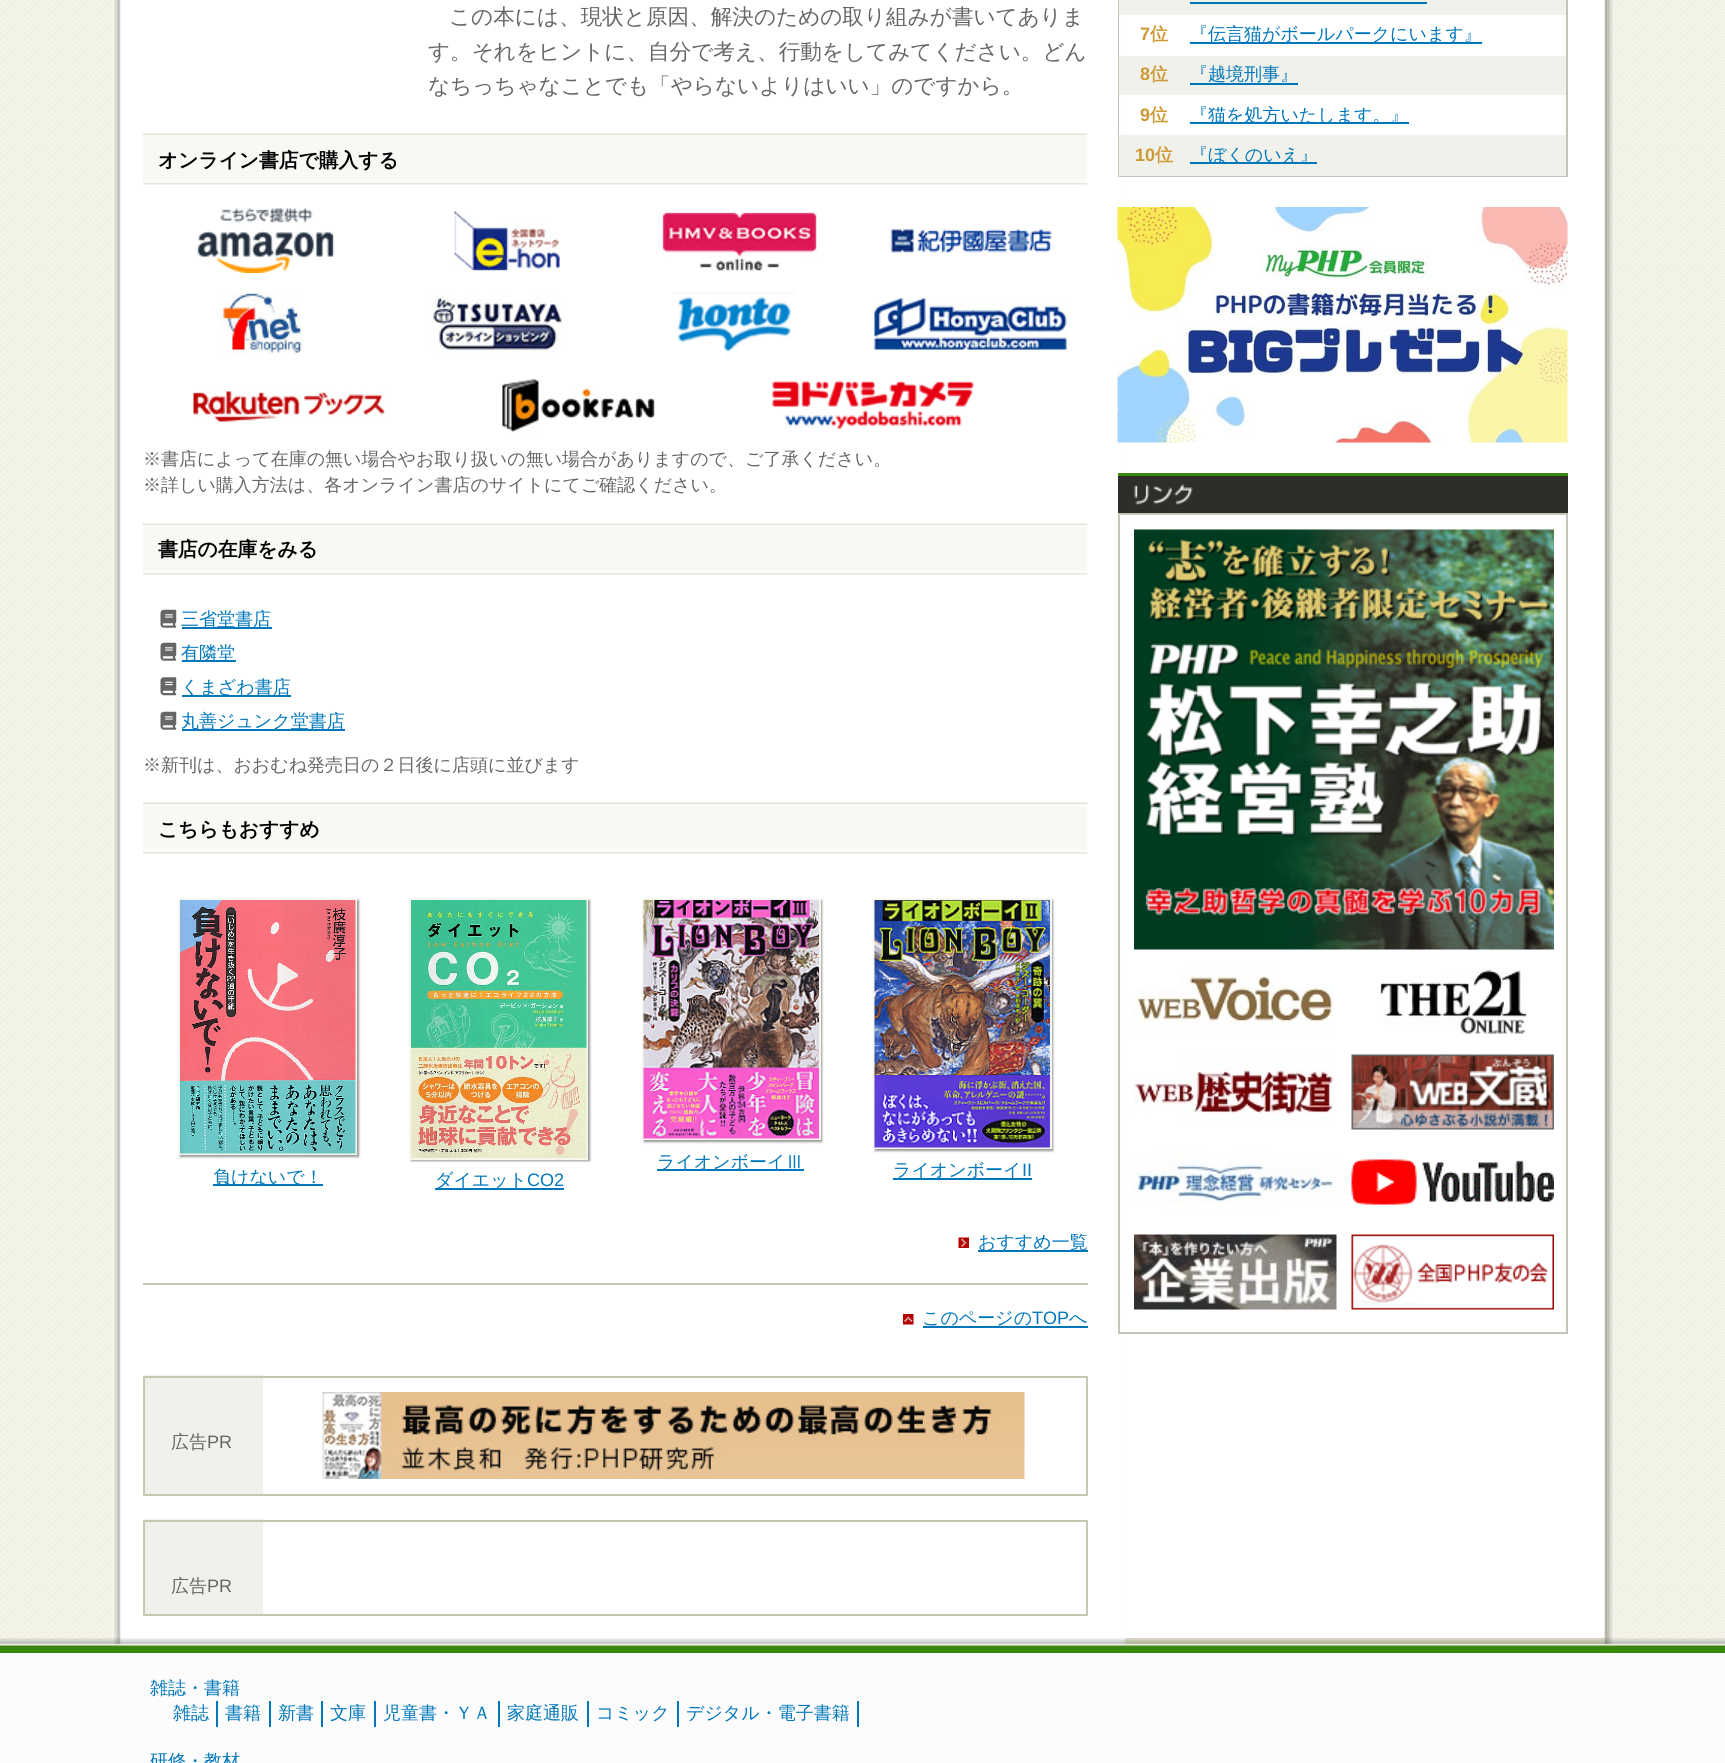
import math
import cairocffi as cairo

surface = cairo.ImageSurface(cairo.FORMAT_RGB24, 1725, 1763)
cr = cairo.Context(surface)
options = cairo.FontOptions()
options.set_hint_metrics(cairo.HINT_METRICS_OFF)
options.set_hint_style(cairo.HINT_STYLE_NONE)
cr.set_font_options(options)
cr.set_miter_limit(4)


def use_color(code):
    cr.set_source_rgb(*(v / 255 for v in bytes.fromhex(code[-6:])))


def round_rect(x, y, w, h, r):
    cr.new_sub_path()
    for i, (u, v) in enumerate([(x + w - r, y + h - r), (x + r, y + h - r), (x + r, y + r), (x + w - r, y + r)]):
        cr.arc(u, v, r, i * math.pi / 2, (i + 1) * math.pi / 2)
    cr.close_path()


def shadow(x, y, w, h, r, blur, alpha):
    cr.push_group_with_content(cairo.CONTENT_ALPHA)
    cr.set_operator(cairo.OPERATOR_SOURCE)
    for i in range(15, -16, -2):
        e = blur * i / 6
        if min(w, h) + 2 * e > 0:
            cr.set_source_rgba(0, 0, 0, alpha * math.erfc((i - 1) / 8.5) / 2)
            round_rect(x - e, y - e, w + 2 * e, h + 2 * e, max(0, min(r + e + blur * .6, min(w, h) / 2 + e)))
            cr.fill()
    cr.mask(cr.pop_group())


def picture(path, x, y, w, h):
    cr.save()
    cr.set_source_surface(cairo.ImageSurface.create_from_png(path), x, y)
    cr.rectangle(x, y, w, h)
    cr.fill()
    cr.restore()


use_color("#ffffff")
cr.paint()
picture("img1.png", 0, 0, 1725, 1638)
picture("img2.png", 112, 0, 1501, 1638)
cr.select_font_face("WenQuanYi Zen Hei Medium")
cr.set_font_size(21.6)
use_color("#666666")
cr.move_to(449, 24)
cr.show_text("この本には、現状と原因、解決のための取り組みが書いてありま")
cr.move_to(428, 59)
cr.show_text("す。それをヒントに、自分で考え、行動をしてみてください。どん")
cr.move_to(428, 93)
cr.show_text("なちっちゃなことでも「やらないよりはいい」のですから。")
picture("img3.png", 142, 133, 946, 52)
cr.select_font_face("WenQuanYi Zen Hei", cairo.FONT_SLANT_NORMAL, cairo.FONT_WEIGHT_BOLD)
cr.set_font_size(19.75)
use_color("#000000")
cr.move_to(158, 167)
cr.show_text("オンライン書店で購入する")
picture("img4.png", 197, 208, 137, 65)
picture("img5.png", 454, 211, 106, 60)
picture("img6.png", 662, 212, 155, 59)
picture("img7.png", 890, 229, 162, 24)
picture("img8.png", 219, 291, 83, 65)
picture("img9.png", 431, 295, 132, 58)
picture("img10.png", 672, 292, 123, 60)
picture("img11.png", 874, 298, 193, 52)
picture("img12.png", 193, 391, 192, 31)
picture("img13.png", 502, 379, 153, 54)
picture("img14.png", 772, 380, 202, 50)
cr.select_font_face("WenQuanYi Zen Hei Medium")
cr.set_font_size(18)
use_color("#666666")
cr.move_to(143, 465)
cr.show_text("※書店によって在庫の無い場合やお取り扱いの無い場合がありますので、ご了承ください。")
cr.move_to(143, 491)
cr.show_text("※詳しい購入方法は、各オンライン書店のサイトにてご確認ください。")
picture("img3.png", 142, 523, 946, 52)
cr.select_font_face("WenQuanYi Zen Hei", cairo.FONT_SLANT_NORMAL, cairo.FONT_WEIGHT_BOLD)
cr.set_font_size(19.75)
use_color("#000000")
cr.move_to(158, 556)
cr.show_text("書店の在庫をみる")
picture("img15.png", 160, 609, 17, 19)
use_color("#0077bb")
cr.rectangle(182, 627, 90, 2)
cr.fill()
cr.select_font_face("WenQuanYi Zen Hei Medium")
cr.set_font_size(18)
cr.move_to(181, 625)
cr.show_text("三省堂書店")
picture("img15.png", 160, 642, 17, 19)
cr.rectangle(182, 660, 54, 2)
cr.fill()
cr.move_to(181, 659)
cr.show_text("有隣堂")
picture("img16.png", 160, 677, 17, 19)
cr.rectangle(182, 695, 109, 2)
cr.fill()
cr.move_to(181, 693)
cr.show_text("くまざわ書店")
picture("img15.png", 160, 711, 17, 19)
cr.rectangle(182, 729, 163, 2)
cr.fill()
cr.move_to(181, 727)
cr.show_text("丸善ジュンク堂書店")
use_color("#666666")
cr.move_to(143, 771)
cr.show_text("※新刊は、おおむね発売日の２日後に店頭に並びます")
picture("img3.png", 142, 802, 946, 52)
cr.select_font_face("WenQuanYi Zen Hei", cairo.FONT_SLANT_NORMAL, cairo.FONT_WEIGHT_BOLD)
cr.set_font_size(19.75)
use_color("#000000")
cr.move_to(158, 836)
cr.show_text("こちらもおすすめ")
use_color("#000000")
shadow(180, 900, 179, 257, 0, 1, 0.4)
cr.rectangle(180, 900, 176, 254)
use_color("#f6f6ed")
cr.stroke()
picture("img17.png", 180, 900, 176, 254)
use_color("#0077bb")
cr.rectangle(213, 1184, 110, 2)
cr.fill()
cr.select_font_face("WenQuanYi Zen Hei Medium")
cr.set_font_size(18)
cr.move_to(213, 1183)
cr.show_text("負けないで！")
use_color("#000000")
shadow(411, 900, 179, 261, 0, 1, 0.4)
cr.rectangle(411, 900, 176, 259)
use_color("#f6f6ed")
cr.stroke()
picture("img18.png", 411, 900, 176, 258)
use_color("#0077bb")
cr.rectangle(435, 1188, 129, 2)
cr.fill()
cr.move_to(435, 1186)
cr.show_text("ダイエット")
cr.select_font_face("Liberation Sans")
cr.move_to(527, 1186)
cr.show_text("CO2")
use_color("#000000")
shadow(644, 900, 178, 242, 0, 1, 0.4)
cr.rectangle(643, 900, 177, 239)
use_color("#f6f6ed")
cr.stroke()
picture("img19.png", 643, 900, 176, 239)
use_color("#0077bb")
cr.rectangle(657, 1169, 147, 2)
cr.fill()
cr.select_font_face("WenQuanYi Zen Hei Medium")
cr.move_to(657, 1168)
cr.show_text("ライオンボーイⅢ")
use_color("#000000")
shadow(875, 900, 178, 251, 0, 1, 0.4)
cr.rectangle(874, 900, 177, 248)
use_color("#f6f6ed")
cr.stroke()
picture("img20.png", 874, 900, 176, 248)
use_color("#0077bb")
cr.rectangle(893, 1178, 139, 2)
cr.fill()
cr.move_to(893, 1176)
cr.show_text("ライオンボーイ")
cr.select_font_face("Liberation Sans")
cr.move_to(1022, 1176)
cr.show_text("II")
picture("img21.png", 958, 1237, 11, 11)
cr.rectangle(978, 1250, 110, 2)
cr.fill()
cr.select_font_face("WenQuanYi Zen Hei Medium")
cr.move_to(978, 1248)
cr.show_text("おすすめ一覧")
use_color("#c6c6b1")
cr.rectangle(143, 1283, 945, 2)
cr.fill()
picture("img22.png", 903, 1314, 11, 11)
use_color("#0077bb")
cr.move_to(922, 1324)
cr.show_text("このページの")
cr.select_font_face("Liberation Sans")
cr.move_to(1032, 1324)
cr.show_text("TOP")
cr.select_font_face("WenQuanYi Zen Hei Medium")
cr.move_to(1069, 1324)
cr.show_text("へ")
cr.rectangle(923, 1326, 165, 2)
cr.fill()
use_color("#f1f1eb")
cr.rectangle(144, 1375, 119, 119)
cr.fill()
cr.rectangle(144, 1377, 943, 118)
use_color("#c6c6b1")
cr.stroke()
use_color("#666666")
cr.move_to(171, 1448)
cr.show_text("広告")
cr.select_font_face("Liberation Sans")
cr.move_to(207, 1448)
cr.show_text("PR")
picture("img23.png", 322, 1392, 703, 87)
use_color("#f1f1eb")
cr.rectangle(144, 1519, 119, 95)
cr.fill()
cr.rectangle(144, 1521, 943, 94)
use_color("#c6c6b1")
cr.stroke()
cr.select_font_face("WenQuanYi Zen Hei Medium")
use_color("#666666")
cr.move_to(171, 1592)
cr.show_text("広告")
cr.select_font_face("Liberation Sans")
cr.move_to(207, 1592)
cr.show_text("PR")
cr.rectangle(1119, -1, 448, 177)
use_color("#c5c3ba")
cr.stroke()
use_color("#f1f1eb")
cr.rectangle(1119, 0, 447, 15)
cr.fill()
use_color("#0077bb")
cr.rectangle(1190, 2, 237, 2)
cr.fill()
use_color("#ffffff")
cr.rectangle(1119, 15, 1, 41)
cr.fill()
cr.select_font_face("Liberation Sans", cairo.FONT_SLANT_NORMAL, cairo.FONT_WEIGHT_BOLD)
use_color("#cc9933")
cr.move_to(1140, 40)
cr.show_text("7")
cr.select_font_face("WenQuanYi Zen Hei", cairo.FONT_SLANT_NORMAL, cairo.FONT_WEIGHT_BOLD)
cr.move_to(1150, 40)
cr.show_text("位")
use_color("#0077bb")
cr.rectangle(1190, 42, 292, 2)
cr.fill()
cr.select_font_face("WenQuanYi Zen Hei Medium")
cr.move_to(1190, 40)
cr.show_text("『伝言猫がボールパークにいます』")
use_color("#f1f1eb")
cr.rectangle(1119, 56, 447, 39)
cr.fill()
cr.select_font_face("Liberation Sans", cairo.FONT_SLANT_NORMAL, cairo.FONT_WEIGHT_BOLD)
use_color("#cc9933")
cr.move_to(1140, 80)
cr.show_text("8")
cr.select_font_face("WenQuanYi Zen Hei", cairo.FONT_SLANT_NORMAL, cairo.FONT_WEIGHT_BOLD)
cr.move_to(1150, 80)
cr.show_text("位")
cr.select_font_face("WenQuanYi Zen Hei Medium")
use_color("#0077bb")
cr.move_to(1190, 80)
cr.show_text("『越境刑事』")
cr.rectangle(1190, 83, 108, 2)
cr.fill()
use_color("#ffffff")
cr.rectangle(1119, 95, 1, 40)
cr.fill()
cr.select_font_face("Liberation Sans", cairo.FONT_SLANT_NORMAL, cairo.FONT_WEIGHT_BOLD)
use_color("#cc9933")
cr.move_to(1140, 121)
cr.show_text("9")
cr.select_font_face("WenQuanYi Zen Hei", cairo.FONT_SLANT_NORMAL, cairo.FONT_WEIGHT_BOLD)
cr.move_to(1150, 121)
cr.show_text("位")
use_color("#0077bb")
cr.rectangle(1190, 122, 219, 2)
cr.fill()
cr.select_font_face("WenQuanYi Zen Hei Medium")
cr.move_to(1190, 121)
cr.show_text("『猫を処方いたします。』")
use_color("#f1f1eb")
cr.rectangle(1119, 135, 447, 41)
cr.fill()
cr.select_font_face("Liberation Sans", cairo.FONT_SLANT_NORMAL, cairo.FONT_WEIGHT_BOLD)
use_color("#cc9933")
cr.move_to(1135, 161)
cr.show_text("10")
cr.select_font_face("WenQuanYi Zen Hei", cairo.FONT_SLANT_NORMAL, cairo.FONT_WEIGHT_BOLD)
cr.move_to(1155, 161)
cr.show_text("位")
use_color("#0077bb")
cr.rectangle(1190, 162, 127, 2)
cr.fill()
cr.select_font_face("WenQuanYi Zen Hei Medium")
cr.move_to(1190, 161)
cr.show_text("『ぼくのいえ』")
picture("img24.png", 1117, 207, 451, 236)
use_color("#36890b")
cr.rectangle(1118, 473, 450, 3)
cr.fill()
use_color("#2e2e29")
cr.rectangle(1118, 476, 450, 37)
cr.fill()
picture("img25.png", 1133, 484, 60, 21)
use_color("#c5c3ba")
cr.rectangle(1118, 513, 450, 2)
cr.fill()
cr.rectangle(1566, 513, 2, 821)
cr.fill()
cr.rectangle(1118, 513, 2, 444)
cr.fill()
picture("img26.png", 1134, 529, 420, 421)
cr.rectangle(1118, 1332, 450, 2)
cr.fill()
cr.rectangle(1118, 957, 2, 377)
cr.fill()
picture("img27.png", 1134, 965, 201, 72)
picture("img28.png", 1380, 968, 147, 66)
picture("img29.png", 1134, 1054, 201, 70)
picture("img30.png", 1351, 1054, 203, 76)
picture("img31.png", 1134, 1148, 203, 66)
picture("img32.png", 1351, 1159, 203, 46)
picture("img33.png", 1134, 1234, 203, 76)
picture("img34.png", 1351, 1234, 203, 76)
use_color("#fcfcfc")
cr.rectangle(0, 1653, 1725, 110)
cr.fill()
picture("img35.png", 0, 1638, 1725, 15)
picture("img36.png", 113, 1638, 1500, 12)
use_color("#0077bb")
cr.move_to(150, 1694)
cr.show_text("雑誌・書籍")
cr.rectangle(216, 1701, 2, 26)
cr.fill()
cr.move_to(173, 1719)
cr.show_text("雑誌")
cr.rectangle(269, 1701, 2, 26)
cr.fill()
cr.move_to(225, 1719)
cr.show_text("書籍")
cr.rectangle(321, 1701, 2, 26)
cr.fill()
cr.move_to(278, 1719)
cr.show_text("新書")
cr.rectangle(374, 1701, 2, 26)
cr.fill()
cr.move_to(330, 1719)
cr.show_text("文庫")
cr.rectangle(498, 1701, 2, 26)
cr.fill()
cr.move_to(383, 1719)
cr.show_text("児童書・ＹＡ")
cr.rectangle(587, 1701, 2, 26)
cr.fill()
cr.move_to(507, 1719)
cr.show_text("家庭通販")
cr.rectangle(677, 1701, 2, 26)
cr.fill()
cr.move_to(596, 1719)
cr.show_text("コミック")
cr.rectangle(857, 1701, 2, 26)
cr.fill()
cr.move_to(686, 1719)
cr.show_text("デジタル・電子書籍")
cr.move_to(150, 1767)
cr.show_text("研修・教材")
surface.write_to_png("result.png")
